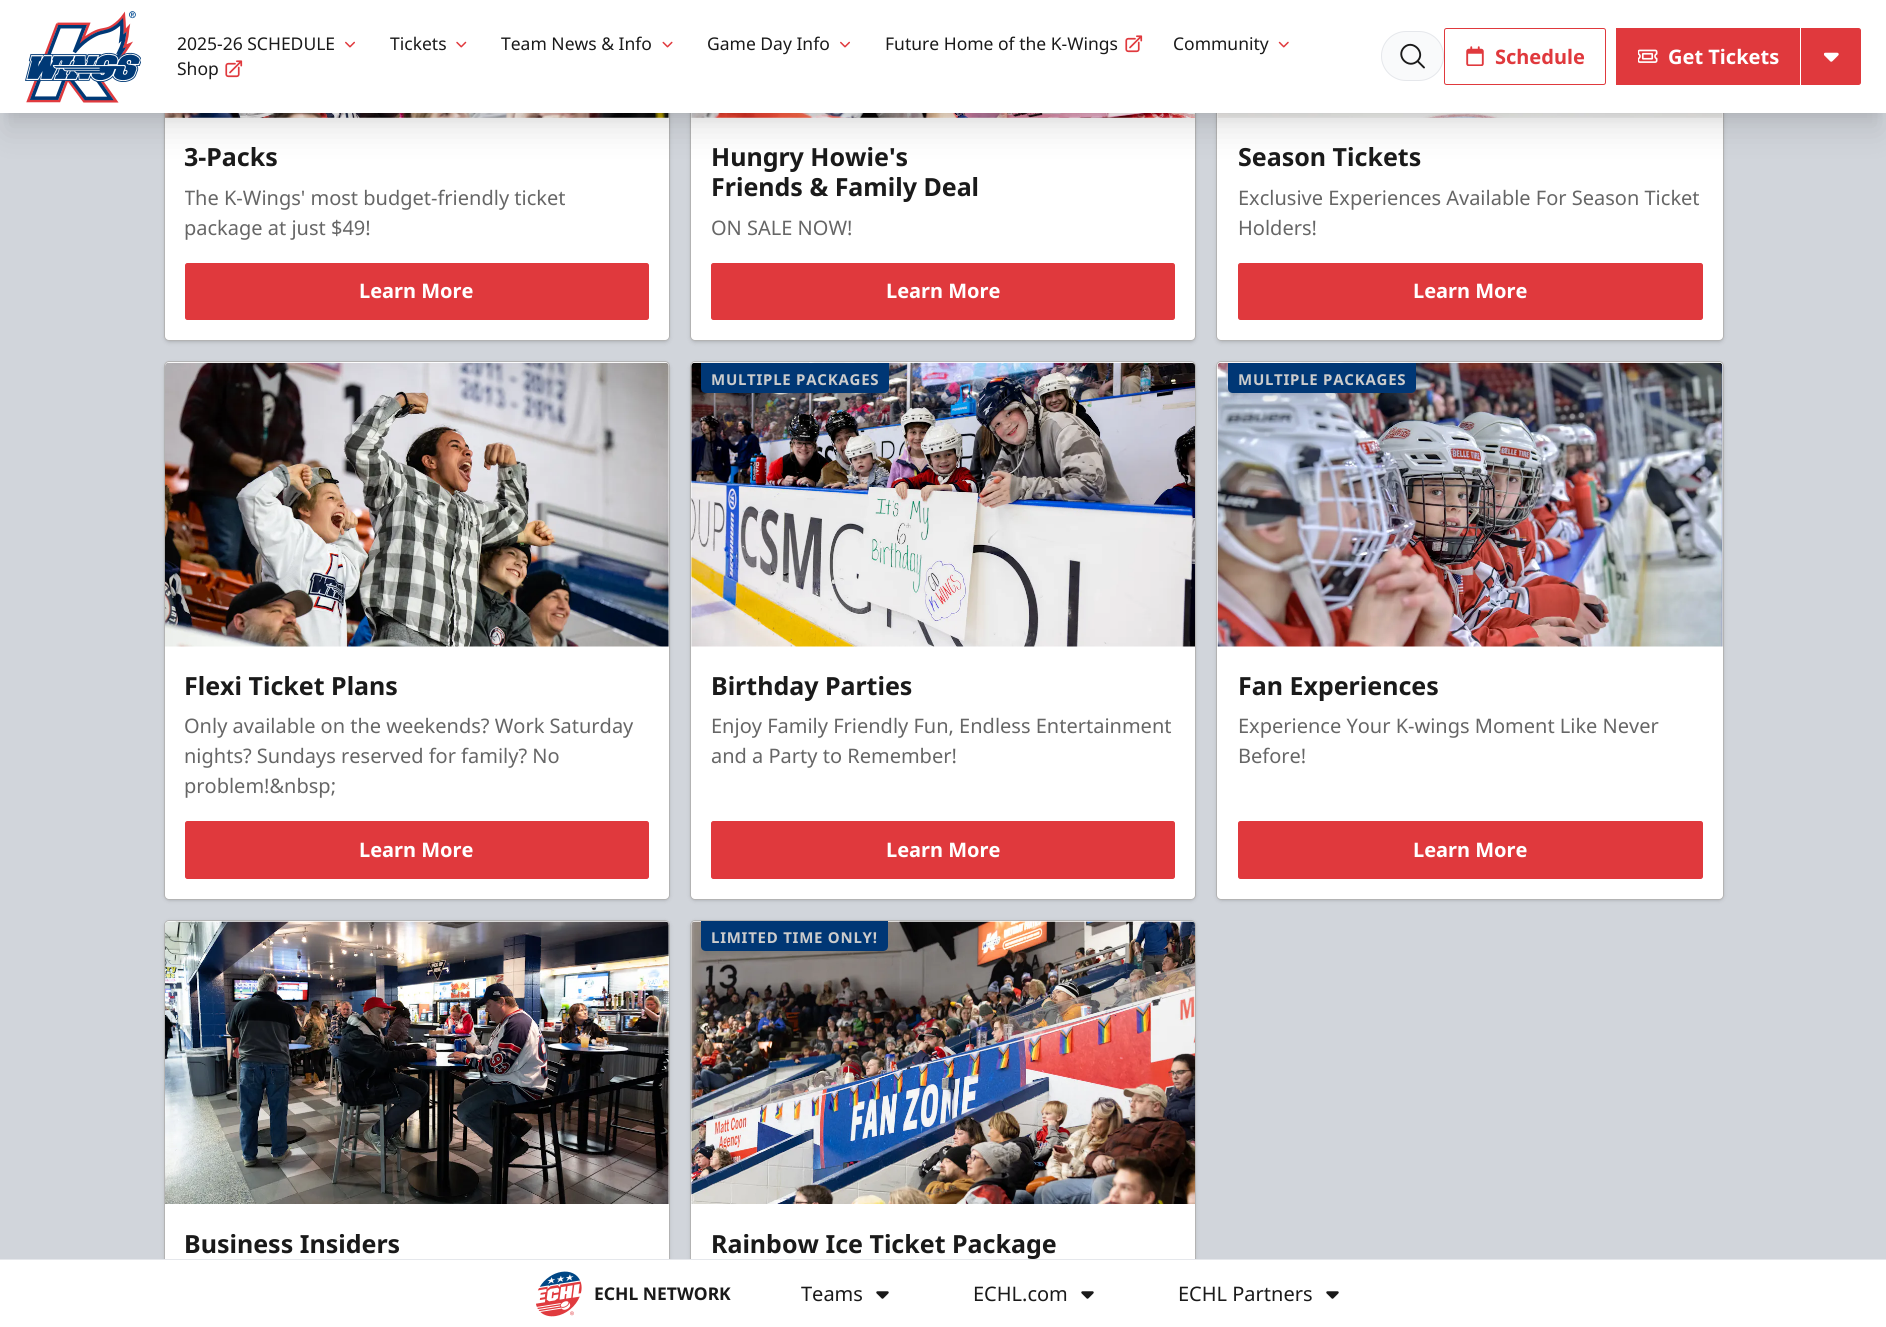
import math
import cairocffi as cairo

surface = cairo.ImageSurface(cairo.FORMAT_RGB24, 1886, 1327)
cr = cairo.Context(surface)
options = cairo.FontOptions()
options.set_hint_metrics(cairo.HINT_METRICS_OFF)
options.set_hint_style(cairo.HINT_STYLE_NONE)
cr.set_font_options(options)
cr.set_miter_limit(4)


def use_color(code):
    cr.set_source_rgb(*(v / 255 for v in bytes.fromhex(code[-6:])))


def spaced_text(x, y, s, letter, word):
    cr.move_to(x, y)
    for ch in s:
        cr.show_text(ch)
        cr.rel_move_to(letter + word * (ch == ' '), 0)


def round_rect(x, y, w, h, r):
    cr.new_sub_path()
    for i, (u, v) in enumerate([(x + w - r, y + h - r), (x + r, y + h - r), (x + r, y + r), (x + w - r, y + r)]):
        cr.arc(u, v, r, i * math.pi / 2, (i + 1) * math.pi / 2)
    cr.close_path()


def shadow(x, y, w, h, r, blur, alpha):
    cr.push_group_with_content(cairo.CONTENT_ALPHA)
    cr.set_operator(cairo.OPERATOR_SOURCE)
    for i in range(15, -16, -2):
        e = blur * i / 6
        if min(w, h) + 2 * e > 0:
            cr.set_source_rgba(0, 0, 0, alpha * math.erfc((i - 1) / 8.5) / 2)
            round_rect(x - e, y - e, w + 2 * e, h + 2 * e, max(0, min(r + e + blur * .6, min(w, h) / 2 + e)))
            cr.fill()
    cr.mask(cr.pop_group())


def picture(path, x, y, w, h):
    cr.save()
    cr.set_source_surface(cairo.ImageSurface.create_from_png(path), x, y)
    cr.rectangle(x, y, w, h)
    cr.fill()
    cr.restore()


use_color("#d1d5db")
cr.paint()
use_color("#000000")
shadow(165, -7, 504, 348, 4, 1, 0.1)
shadow(164, -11, 506, 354, 5, 2, 0.1)
use_color("#ffffff")
round_rect(164, -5, 506, 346, 5)
cr.fill()
round_rect(164.5, -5.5, 505, 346, 4.5)
cr.set_source_rgba(0, 0, 0, 0.3)
cr.set_line_width(1)
cr.stroke()
picture("img10.png", 165, 113, 504, 5)
use_color("#000000")
shadow(691, -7, 504, 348, 4, 1, 0.1)
shadow(690, -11, 506, 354, 5, 2, 0.1)
use_color("#ffffff")
round_rect(690, -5, 506, 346, 5)
cr.fill()
round_rect(690.5, -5.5, 505, 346, 4.5)
cr.set_source_rgba(0, 0, 0, 0.3)
cr.stroke()
picture("img11.png", 691, 113, 504, 5)
use_color("#000000")
shadow(1218, -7, 505, 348, 4, 1, 0.1)
shadow(1216, -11, 508, 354, 5, 2, 0.1)
use_color("#ffffff")
round_rect(1216, -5, 508, 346, 5)
cr.fill()
round_rect(1216.5, -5.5, 507, 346, 4.5)
cr.set_source_rgba(0, 0, 0, 0.3)
cr.stroke()
picture("img12.png", 1217, 113, 506, 5)
use_color("#000000")
shadow(8, 18, 1871, 97, 0, 6, 0.1)
shadow(6, 31, 1874, 100, 0, 15.5, 0.1)
use_color("#ffffff")
cr.rectangle(0, 0, 1886, 113)
cr.fill()
picture("img1.png", 25, 11, 116, 92)
cr.select_font_face("Noto Sans")
cr.set_font_size(17.5)
use_color("#1a1a1a")
cr.move_to(177, 50)
cr.show_text("2025-26 SCHEDULE")
picture("img2.png", 345, 41, 10, 7)
cr.move_to(390, 50)
cr.show_text("Tickets")
picture("img3.png", 456, 41, 11, 7)
cr.move_to(501, 50)
cr.show_text("Team News & Info")
picture("img4.png", 662, 41, 11, 7)
cr.move_to(707, 50)
cr.show_text("Game Day Info")
picture("img2.png", 840, 41, 10, 7)
cr.move_to(885, 50)
cr.show_text("Future Home of the K-Wings")
picture("img5.png", 1125, 35, 18, 18)
cr.move_to(1173, 50)
cr.show_text("Community")
picture("img6.png", 1278, 41, 11, 7)
cr.move_to(177, 75)
cr.show_text("Shop")
picture("img5.png", 225, 60, 18, 18)
use_color("#f9fafb")
round_rect(1381.5, 31.5, 62, 49, 24.5)
cr.fill_preserve()
use_color("#e5e7eb")
cr.stroke()
cr.new_path()
cr.move_to(1424, 67.5)
cr.line_to(1417.5, 61)
cr.move_to(1417.5, 61)
cr.curve_to(1426, 52.5, 1412.5, 39, 1404, 47.5)
cr.curve_to(1395.5, 56.5, 1408.5, 69.5, 1417.5, 61)
cr.close_path()
use_color("#1a1a1a")
cr.set_line_width(1.9)
cr.set_line_cap(cairo.LINE_CAP_ROUND)
cr.set_line_join(cairo.LINE_JOIN_ROUND)
cr.stroke()
round_rect(1444.5, 28.5, 161, 56, 2)
use_color("#e0393d")
cr.set_line_width(1)
cr.set_line_cap(cairo.LINE_CAP_BUTT)
cr.set_line_join(cairo.LINE_JOIN_MITER)
cr.stroke()
picture("img7.png", 1466, 46, 18, 20)
cr.select_font_face("Noto Sans", cairo.FONT_SLANT_NORMAL, cairo.FONT_WEIGHT_BOLD)
cr.set_font_size(20)
cr.move_to(1495, 64)
cr.show_text("Schedule")
cr.rectangle(1616, 28, 184, 57)
cr.fill()
picture("img8.png", 1638, 49, 20, 14)
use_color("#ffffff")
cr.move_to(1668, 64)
cr.show_text("Get Tickets")
use_color("#e0393d")
cr.new_path()
cr.move_to(1801.5, 28.5)
cr.line_to(1858.5, 28.5)
cr.curve_to(1859.5, 28.5, 1860.5, 29.5, 1860.5, 30.5)
cr.line_to(1860.5, 82.5)
cr.curve_to(1860.5, 83.5, 1859.5, 84.5, 1858.5, 84.5)
cr.line_to(1801.5, 84.5)
cr.close_path()
cr.fill_preserve()
cr.stroke()
picture("img9.png", 1824, 52, 15, 10)
cr.set_font_size(25)
use_color("#1a1a1a")
cr.move_to(184, 166)
cr.show_text("3-Packs")
cr.save()
cr.rectangle(185, 183, 464, 60)
cr.clip()
cr.select_font_face("Noto Sans")
cr.set_font_size(20)
use_color("#666666")
cr.move_to(184, 205)
cr.show_text("The K-Wings' most budget-friendly ticket")
cr.restore()
cr.select_font_face("Noto Sans")
cr.set_font_size(20)
use_color("#666666")
cr.move_to(184, 235)
cr.show_text("package at just $49!")
use_color("#e0393d")
round_rect(185.5, 263.5, 463, 56, 2)
cr.fill_preserve()
cr.stroke()
cr.select_font_face("Noto Sans", cairo.FONT_SLANT_NORMAL, cairo.FONT_WEIGHT_BOLD)
use_color("#ffffff")
cr.move_to(359, 298)
cr.show_text("Learn More")
cr.set_font_size(25)
use_color("#1a1a1a")
cr.move_to(711, 166)
cr.show_text("Hungry Howie's")
cr.move_to(711, 196)
cr.show_text("Friends & Family Deal")
cr.select_font_face("Noto Sans")
cr.set_font_size(20)
use_color("#666666")
cr.move_to(711, 235)
cr.show_text("ON SALE NOW!")
use_color("#e0393d")
round_rect(711.5, 263.5, 463, 56, 2)
cr.fill_preserve()
cr.stroke()
cr.select_font_face("Noto Sans", cairo.FONT_SLANT_NORMAL, cairo.FONT_WEIGHT_BOLD)
use_color("#ffffff")
cr.move_to(886, 298)
cr.show_text("Learn More")
cr.set_font_size(25)
use_color("#1a1a1a")
cr.move_to(1238, 166)
cr.show_text("Season Tickets")
cr.select_font_face("Noto Sans")
cr.set_font_size(20)
use_color("#666666")
cr.move_to(1238, 205)
cr.show_text("Exclusive Experiences Available For Season Ticket")
cr.move_to(1238, 235)
cr.show_text("Holders!")
use_color("#e0393d")
round_rect(1238.5, 263.5, 464, 56, 2)
cr.fill_preserve()
cr.stroke()
cr.select_font_face("Noto Sans", cairo.FONT_SLANT_NORMAL, cairo.FONT_WEIGHT_BOLD)
use_color("#ffffff")
cr.move_to(1413, 298)
cr.show_text("Learn More")
use_color("#000000")
shadow(165, 364, 504, 536, 4, 1, 0.1)
shadow(164, 363, 506, 538, 5, 2, 0.1)
use_color("#ffffff")
round_rect(164, 361, 506, 539, 5)
cr.fill()
round_rect(164.5, 361.5, 505, 538, 4.5)
cr.set_source_rgba(0, 0, 0, 0.3)
cr.stroke()
picture("img13.png", 165, 362, 504, 285)
cr.set_font_size(25)
use_color("#1a1a1a")
cr.move_to(184, 695)
cr.show_text("Flexi Ticket Plans")
cr.select_font_face("Noto Sans")
cr.set_font_size(20)
use_color("#666666")
cr.move_to(184, 733)
cr.show_text("Only available on the weekends? Work Saturday")
cr.move_to(184, 763)
cr.show_text("nights? Sundays reserved for family? No")
cr.move_to(184, 793)
cr.show_text("problem!&nbsp;")
use_color("#e0393d")
round_rect(185.5, 821.5, 463, 57, 2)
cr.fill_preserve()
cr.stroke()
cr.select_font_face("Noto Sans", cairo.FONT_SLANT_NORMAL, cairo.FONT_WEIGHT_BOLD)
use_color("#ffffff")
cr.move_to(359, 857)
cr.show_text("Learn More")
use_color("#000000")
shadow(691, 364, 504, 536, 4, 1, 0.1)
shadow(690, 363, 506, 538, 5, 2, 0.1)
use_color("#ffffff")
round_rect(690, 361, 506, 539, 5)
cr.fill()
round_rect(690.5, 361.5, 505, 538, 4.5)
cr.set_source_rgba(0, 0, 0, 0.3)
cr.stroke()
picture("img14.png", 691, 362, 504, 285)
use_color("#000000")
shadow(706, 373, 178, 20, 0, 4, 0.1)
shadow(705, 379, 180, 22, 1, 9.5, 0.1)
use_color("#003775")
cr.new_path()
cr.move_to(701, 363)
cr.line_to(889, 363)
cr.line_to(889, 388)
cr.curve_to(889, 391, 887, 393, 884, 393)
cr.line_to(706, 393)
cr.curve_to(703, 393, 701, 391, 701, 388)
cr.close_path()
cr.fill()
cr.set_font_size(15)
use_color("#cccccc")
spaced_text(711, 385, "MULTIPLE PACKAGES", 0.75, 0)
cr.set_font_size(25)
use_color("#1a1a1a")
cr.move_to(711, 695)
cr.show_text("Birthday Parties")
cr.select_font_face("Noto Sans")
cr.set_font_size(20)
use_color("#666666")
cr.move_to(711, 733)
cr.show_text("Enjoy Family Friendly Fun, Endless Entertainment")
cr.move_to(711, 763)
cr.show_text("and a Party to Remember!")
use_color("#e0393d")
round_rect(711.5, 821.5, 463, 57, 2)
cr.fill_preserve()
cr.stroke()
cr.select_font_face("Noto Sans", cairo.FONT_SLANT_NORMAL, cairo.FONT_WEIGHT_BOLD)
use_color("#ffffff")
cr.move_to(886, 857)
cr.show_text("Learn More")
use_color("#000000")
shadow(1218, 364, 505, 536, 4, 1, 0.1)
shadow(1216, 363, 508, 538, 5, 2, 0.1)
use_color("#ffffff")
round_rect(1216, 361, 508, 539, 5)
cr.fill()
round_rect(1216.5, 361.5, 507, 538, 4.5)
cr.set_source_rgba(0, 0, 0, 0.3)
cr.stroke()
picture("img15.png", 1217, 362, 506, 285)
use_color("#000000")
shadow(1233, 373, 178, 20, 0, 4, 0.1)
shadow(1231, 379, 182, 22, 1, 9.5, 0.1)
use_color("#003775")
cr.new_path()
cr.move_to(1228, 363)
cr.line_to(1416, 363)
cr.line_to(1416, 388)
cr.curve_to(1416, 391, 1414, 393, 1411, 393)
cr.line_to(1233, 393)
cr.curve_to(1230, 393, 1228, 391, 1228, 388)
cr.close_path()
cr.fill()
cr.set_font_size(15)
use_color("#cccccc")
spaced_text(1238, 385, "MULTIPLE PACKAGES", 0.75, 0)
cr.set_font_size(25)
use_color("#1a1a1a")
cr.move_to(1238, 695)
cr.show_text("Fan Experiences")
cr.select_font_face("Noto Sans")
cr.set_font_size(20)
use_color("#666666")
cr.move_to(1238, 733)
cr.show_text("Experience Your K-wings Moment Like Never")
cr.move_to(1238, 763)
cr.show_text("Before!")
use_color("#e0393d")
round_rect(1238.5, 821.5, 464, 57, 2)
cr.fill_preserve()
cr.stroke()
cr.select_font_face("Noto Sans", cairo.FONT_SLANT_NORMAL, cairo.FONT_WEIGHT_BOLD)
use_color("#ffffff")
cr.move_to(1413, 857)
cr.show_text("Learn More")
use_color("#000000")
shadow(164, 921, 506, 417, 5, 2, 0.1)
use_color("#ffffff")
round_rect(164, 920, 506, 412, 5)
cr.fill()
round_rect(164.5, 920.5, 505, 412, 4.5)
cr.set_source_rgba(0, 0, 0, 0.3)
cr.stroke()
picture("img16.png", 165, 921, 504, 283)
cr.set_font_size(25)
use_color("#1a1a1a")
cr.move_to(184, 1253)
cr.show_text("Business Insiders")
use_color("#000000")
shadow(690, 921, 506, 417, 5, 2, 0.1)
use_color("#ffffff")
round_rect(690, 920, 506, 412, 5)
cr.fill()
round_rect(690.5, 920.5, 505, 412, 4.5)
cr.set_source_rgba(0, 0, 0, 0.3)
cr.stroke()
picture("img17.png", 691, 921, 504, 283)
use_color("#000000")
shadow(706, 931, 177, 20, 0, 4, 0.1)
use_color("#003775")
cr.new_path()
cr.move_to(701, 921)
cr.line_to(888, 921)
cr.line_to(888, 946)
cr.curve_to(888, 949, 886, 951, 883, 951)
cr.line_to(706, 951)
cr.curve_to(703, 951, 701, 949, 701, 946)
cr.close_path()
cr.fill()
cr.set_font_size(15)
use_color("#cccccc")
spaced_text(711, 943, "LIMITED TIME ONLY!", 0.75, 0)
cr.set_font_size(25)
use_color("#1a1a1a")
cr.move_to(711, 1253)
cr.show_text("Rainbow Ice Ticket Package")
use_color("#ffffff")
cr.rectangle(0, 1260, 1886, 67)
cr.fill()
use_color("#e5e7eb")
cr.rectangle(0, 1259, 1886, 1)
cr.fill()
picture("img18.png", 536, 1271, 46, 46)
cr.set_font_size(17.5)
use_color("#1a1a1a")
cr.move_to(594, 1300)
cr.show_text("ECHL NETWORK")
cr.select_font_face("Noto Sans")
cr.set_font_size(20)
cr.move_to(801, 1301)
cr.show_text("Teams")
picture("img19.png", 876, 1291, 13, 8)
cr.move_to(973, 1301)
cr.show_text("ECHL.com")
picture("img19.png", 1081, 1291, 13, 8)
cr.move_to(1178, 1301)
cr.show_text("ECHL Partners")
picture("img19.png", 1326, 1291, 13, 8)
surface.write_to_png("result.png")
